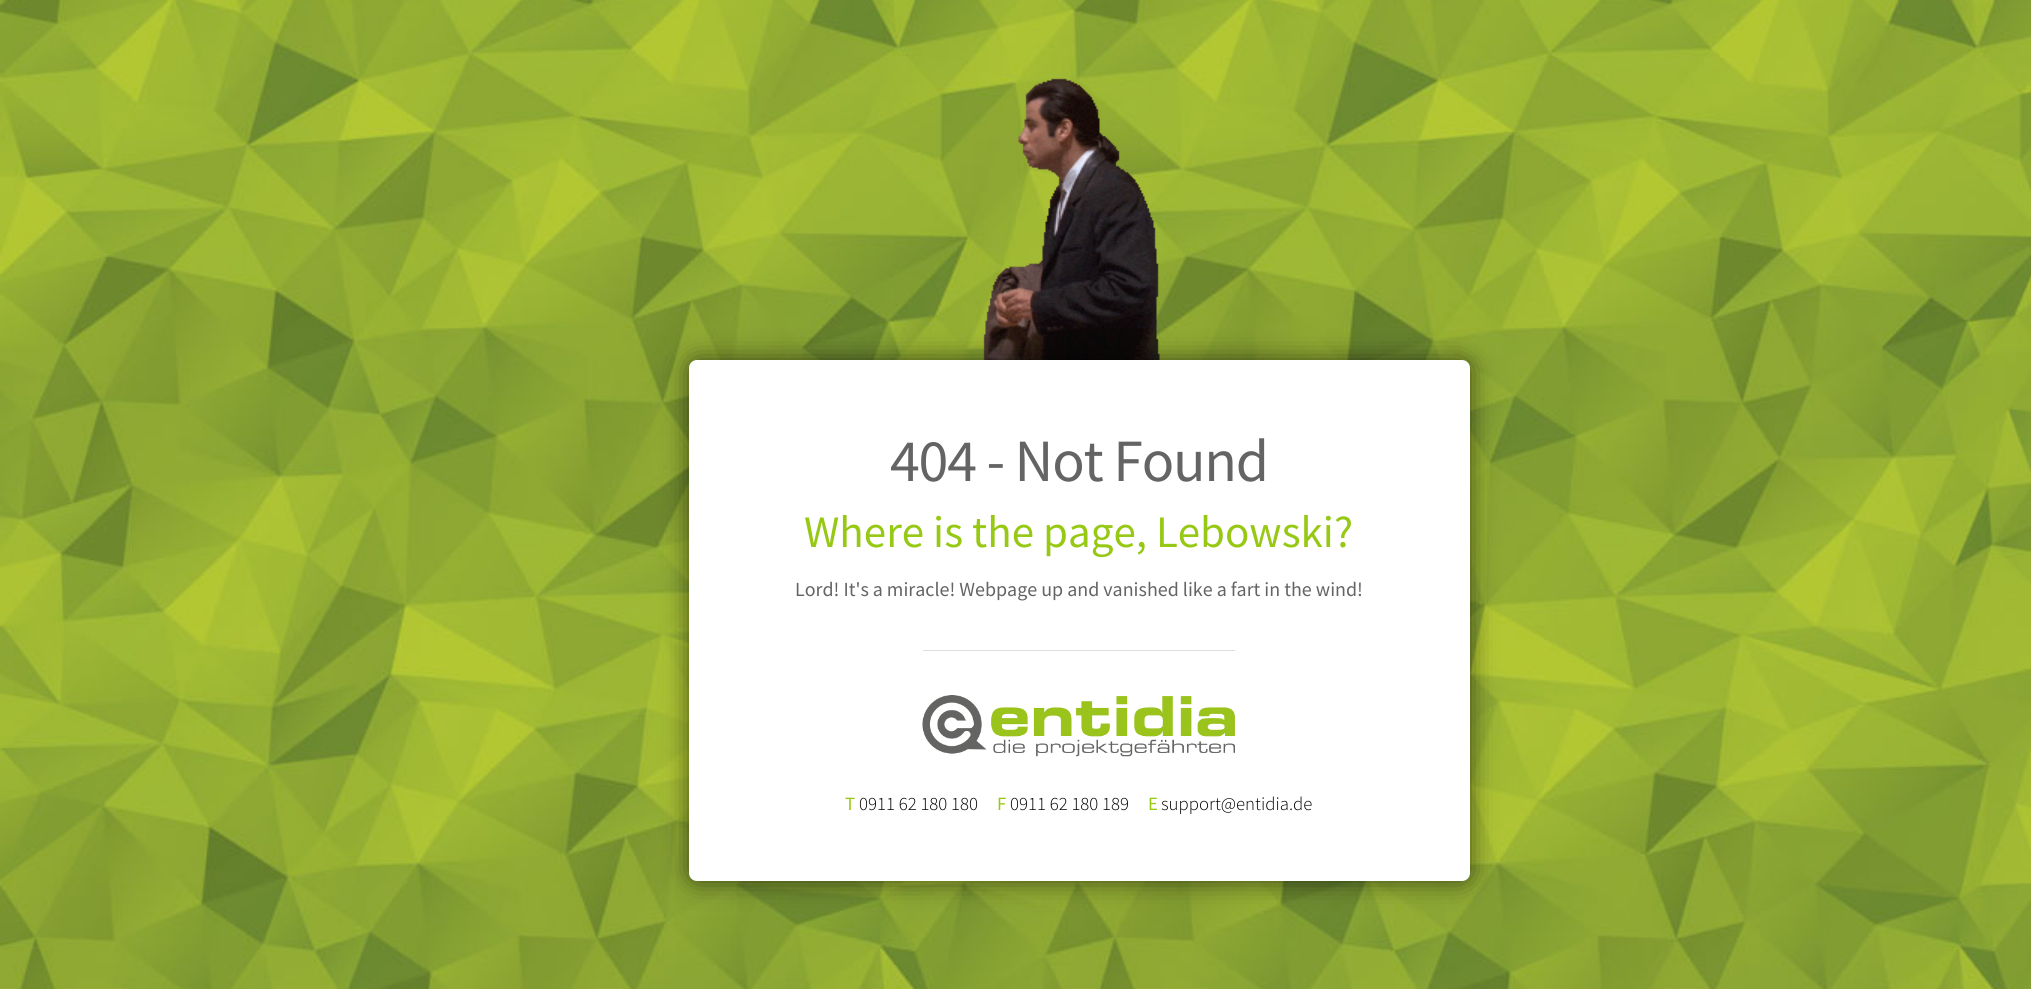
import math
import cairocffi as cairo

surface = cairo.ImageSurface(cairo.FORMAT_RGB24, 2031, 989)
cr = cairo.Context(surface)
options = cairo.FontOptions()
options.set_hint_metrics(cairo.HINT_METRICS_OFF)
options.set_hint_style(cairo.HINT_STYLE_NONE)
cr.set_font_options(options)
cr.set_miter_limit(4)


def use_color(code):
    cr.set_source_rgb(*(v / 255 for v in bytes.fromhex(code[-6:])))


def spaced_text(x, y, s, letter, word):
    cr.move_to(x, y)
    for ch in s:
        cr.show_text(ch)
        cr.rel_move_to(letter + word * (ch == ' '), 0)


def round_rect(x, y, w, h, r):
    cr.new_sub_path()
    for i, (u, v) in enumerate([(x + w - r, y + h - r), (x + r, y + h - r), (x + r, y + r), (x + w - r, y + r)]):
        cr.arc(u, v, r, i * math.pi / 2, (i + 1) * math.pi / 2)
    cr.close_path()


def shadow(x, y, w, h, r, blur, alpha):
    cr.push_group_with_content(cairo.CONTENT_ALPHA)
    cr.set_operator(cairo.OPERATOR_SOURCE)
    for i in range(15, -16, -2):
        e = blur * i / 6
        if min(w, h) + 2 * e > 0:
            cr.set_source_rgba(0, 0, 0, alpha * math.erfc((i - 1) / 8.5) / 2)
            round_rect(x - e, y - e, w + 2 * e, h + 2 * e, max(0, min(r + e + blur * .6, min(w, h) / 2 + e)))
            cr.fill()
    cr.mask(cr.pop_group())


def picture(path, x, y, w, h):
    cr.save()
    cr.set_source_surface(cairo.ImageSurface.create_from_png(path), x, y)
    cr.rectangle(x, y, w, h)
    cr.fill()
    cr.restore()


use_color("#ffffff")
cr.paint()
picture("img1.png", 0, 0, 2031, 989)
picture("img2.png", 983, 78, 177, 282)
use_color("#000000")
shadow(689, 360, 781, 521, 8, 12.5, 0.6)
use_color("#ffffff")
round_rect(689, 360, 781, 521, 8)
cr.fill()
cr.select_font_face("Source Sans Pro")
cr.set_font_size(60)
use_color("#646464")
spaced_text(890, 481, "404 - Not Found", -1.25, 0)
cr.set_font_size(45)
use_color("#96c814")
cr.move_to(804, 547)
cr.show_text("Where is the page, Lebowski?")
cr.set_font_size(20)
use_color("#646464")
cr.move_to(795, 596)
cr.show_text("Lord! It's a miracle! Webpage up and vanished like a fart in the wind!")
use_color("#dddddd")
cr.rectangle(923, 650, 312, 1)
cr.fill()
picture("img3.png", 922, 695, 313, 62)
cr.set_font_size(18.75)
use_color("#96c814")
cr.move_to(845, 810)
cr.show_text("T")
cr.select_font_face("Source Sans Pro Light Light")
use_color("#000000")
cr.move_to(859, 810)
cr.show_text("0911 62 180 180")
cr.select_font_face("Source Sans Pro")
use_color("#96c814")
cr.move_to(997, 810)
cr.show_text("F")
cr.select_font_face("Source Sans Pro Light Light")
use_color("#000000")
cr.move_to(1010, 810)
cr.show_text("0911 62 180 189")
cr.select_font_face("Source Sans Pro")
use_color("#96c814")
cr.move_to(1148, 810)
cr.show_text("E")
cr.select_font_face("Source Sans Pro Light Light")
use_color("#000000")
cr.move_to(1161, 810)
cr.show_text("support@entidia.de")
surface.write_to_png("result.png")
